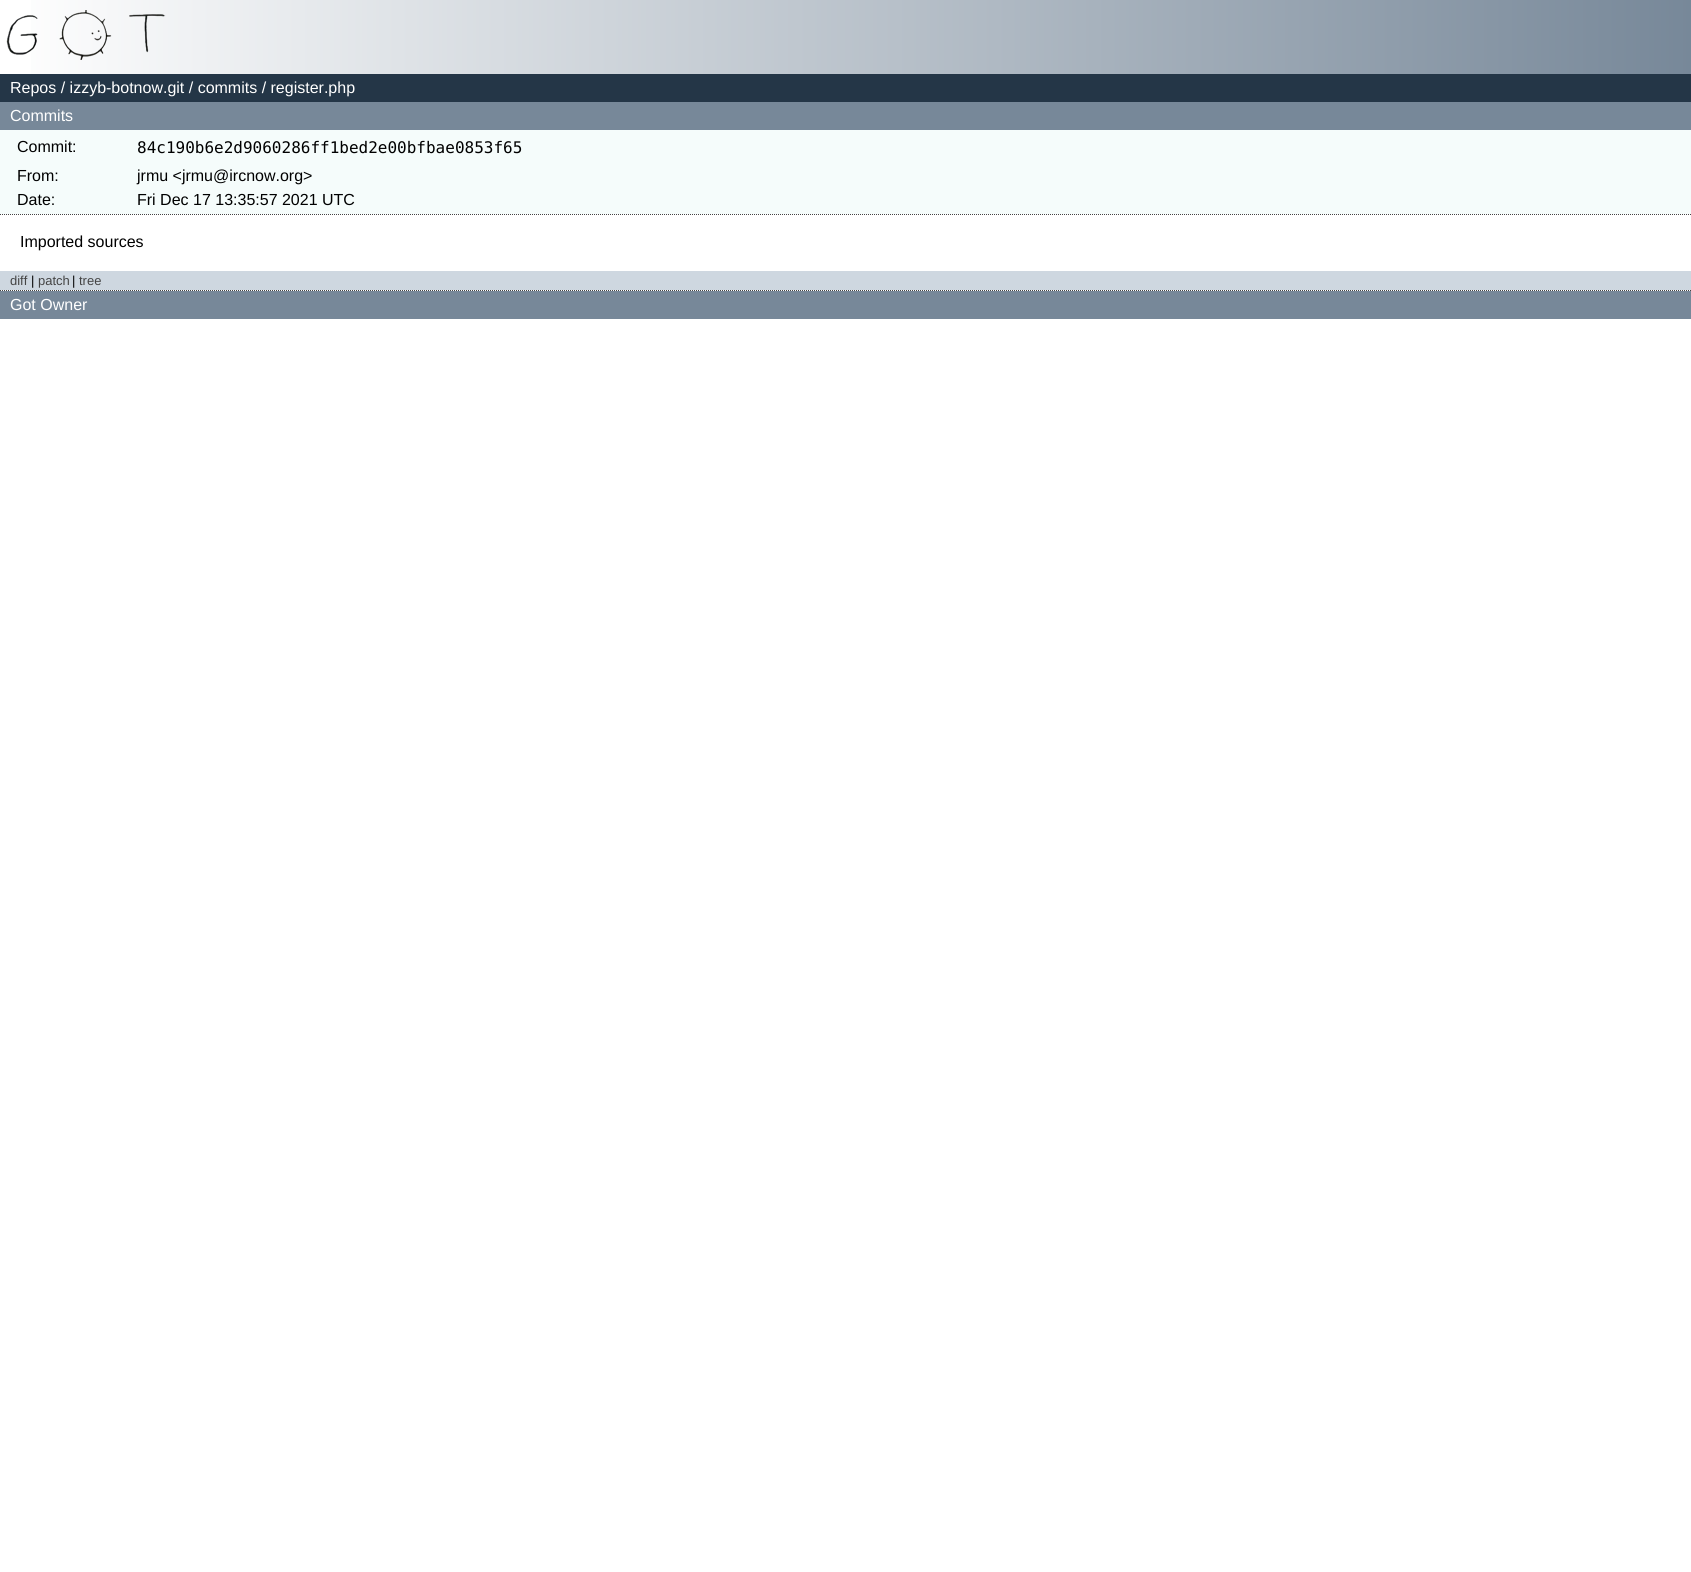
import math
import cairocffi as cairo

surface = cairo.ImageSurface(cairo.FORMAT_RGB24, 1691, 1572)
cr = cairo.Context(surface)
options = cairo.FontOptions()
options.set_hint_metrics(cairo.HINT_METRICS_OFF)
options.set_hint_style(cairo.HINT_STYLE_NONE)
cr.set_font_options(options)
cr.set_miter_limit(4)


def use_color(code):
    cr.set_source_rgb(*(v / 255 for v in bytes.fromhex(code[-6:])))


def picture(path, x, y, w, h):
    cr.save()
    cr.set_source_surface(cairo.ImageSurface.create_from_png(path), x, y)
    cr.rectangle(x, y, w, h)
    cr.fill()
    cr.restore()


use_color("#ffffff")
cr.paint()
gradient = cairo.LinearGradient(0, 37, 1691, 37)
gradient.add_color_stop_rgba(0, 1, 1, 1, 1)
gradient.add_color_stop_rgba(1, 0.467, 0.533, 0.6, 1)
cr.set_source(gradient)
cr.rectangle(31, 0, 1660, 74)
cr.fill()
picture("img1.png", 6, 10, 160, 50)
use_color("#243647")
cr.rectangle(0, 74, 1691, 28)
cr.fill()
cr.select_font_face("Liberation Sans")
cr.set_font_size(16)
use_color("#ffffff")
cr.move_to(10, 93)
cr.show_text("Repos / izzyb-botnow.git / commits / register.php")
use_color("#778899")
cr.rectangle(0, 102, 1691, 28)
cr.fill()
use_color("#ffffff")
cr.move_to(10, 121)
cr.show_text("Commits")
use_color("#f5fcfb")
cr.rectangle(0, 130, 1691, 84)
cr.fill()
use_color("#000000")
cr.move_to(17, 152)
cr.show_text("Commit:")
cr.select_font_face("DejaVu Sans Mono")
cr.move_to(137, 153)
cr.show_text("84c190b6e2d9060286ff1bed2e00bfbae0853f65")
cr.select_font_face("Liberation Sans")
cr.move_to(17, 181)
cr.show_text("From:")
cr.move_to(137, 181)
cr.show_text("jrmu <jrmu@ircnow.org>")
cr.move_to(17, 205)
cr.show_text("Date:")
cr.move_to(137, 205)
cr.show_text("Fri Dec 17 13:35:57 2021 UTC")
cr.new_path()
cr.move_to(0, 214.5)
cr.line_to(1691, 214.5)
use_color("#444444")
cr.set_line_width(1)
cr.set_dash([1, 1])
cr.stroke()
use_color("#000000")
cr.move_to(20, 247)
cr.show_text("Imported sources")
use_color("#ced7e0")
cr.rectangle(0, 271, 1691, 19)
cr.fill()
cr.set_font_size(13)
use_color("#444444")
cr.move_to(10, 285)
cr.show_text("diff")
use_color("#000000")
cr.move_to(31, 285)
cr.show_text("|")
use_color("#444444")
cr.move_to(38, 285)
cr.show_text("patch")
use_color("#000000")
cr.move_to(72, 285)
cr.show_text("|")
use_color("#444444")
cr.move_to(79, 285)
cr.show_text("tree")
cr.new_path()
cr.move_to(0, 290.5)
cr.line_to(1691, 290.5)
cr.stroke()
use_color("#778899")
cr.rectangle(0, 291, 1691, 28)
cr.fill()
cr.set_font_size(16)
use_color("#ffffff")
cr.move_to(10, 310)
cr.show_text("Got Owner")
surface.write_to_png("result.png")
